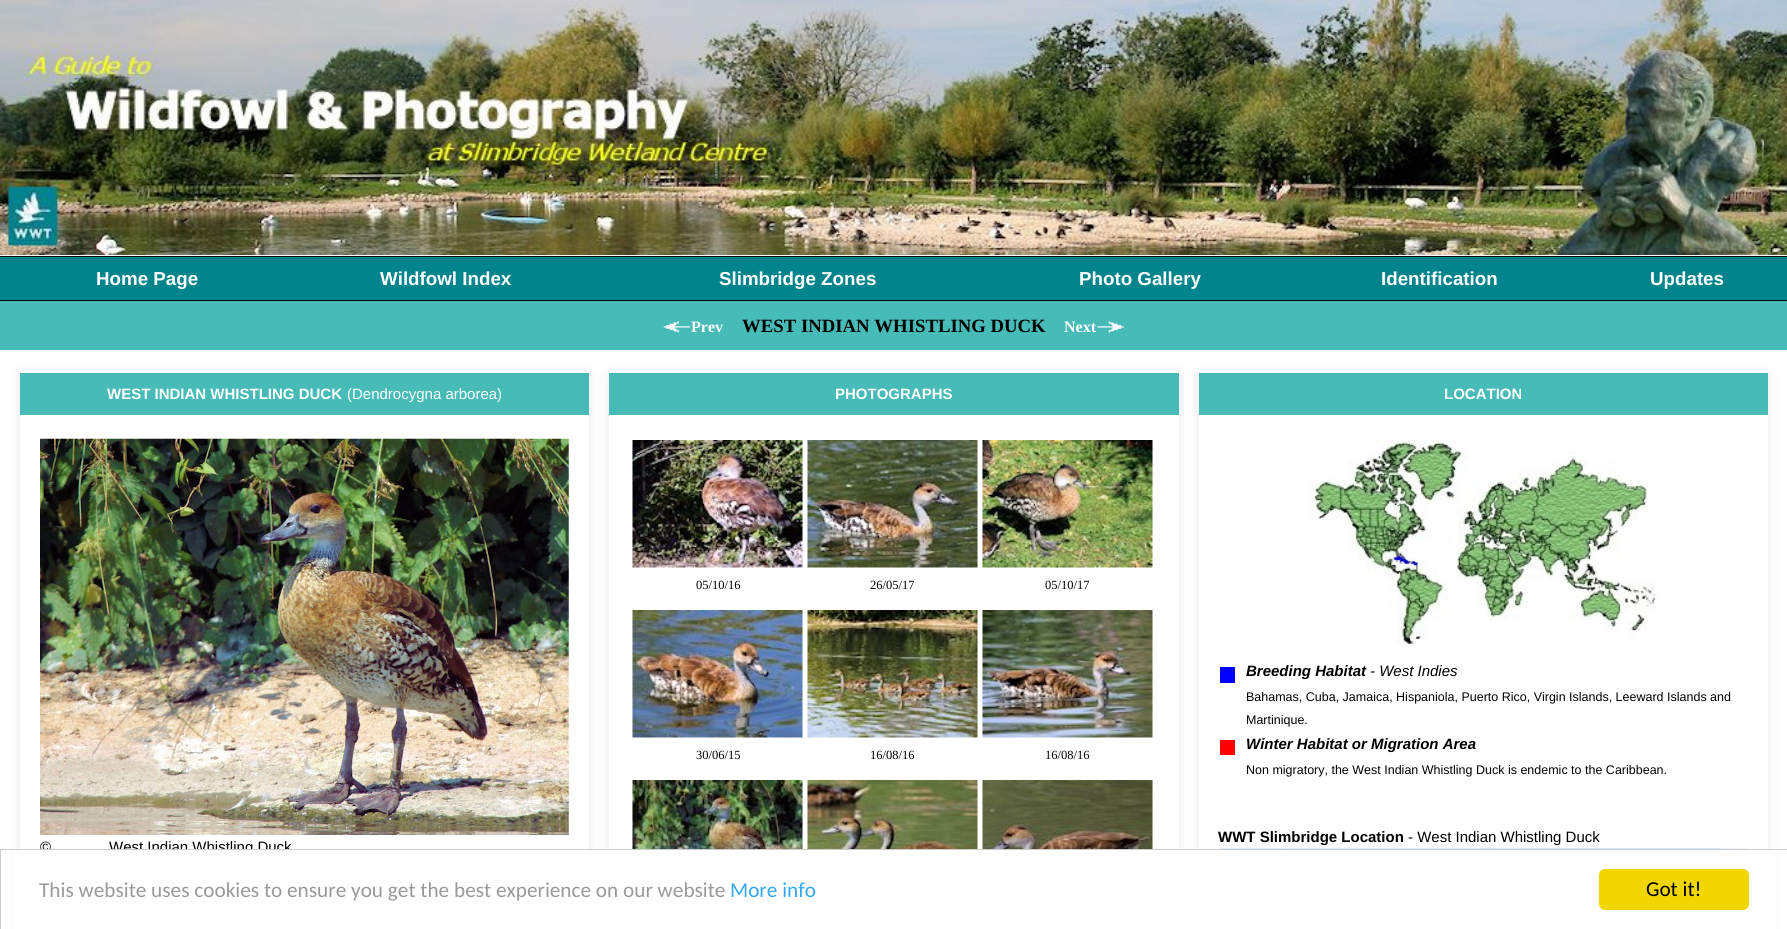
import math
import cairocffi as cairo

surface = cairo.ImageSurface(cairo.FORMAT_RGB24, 1787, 929)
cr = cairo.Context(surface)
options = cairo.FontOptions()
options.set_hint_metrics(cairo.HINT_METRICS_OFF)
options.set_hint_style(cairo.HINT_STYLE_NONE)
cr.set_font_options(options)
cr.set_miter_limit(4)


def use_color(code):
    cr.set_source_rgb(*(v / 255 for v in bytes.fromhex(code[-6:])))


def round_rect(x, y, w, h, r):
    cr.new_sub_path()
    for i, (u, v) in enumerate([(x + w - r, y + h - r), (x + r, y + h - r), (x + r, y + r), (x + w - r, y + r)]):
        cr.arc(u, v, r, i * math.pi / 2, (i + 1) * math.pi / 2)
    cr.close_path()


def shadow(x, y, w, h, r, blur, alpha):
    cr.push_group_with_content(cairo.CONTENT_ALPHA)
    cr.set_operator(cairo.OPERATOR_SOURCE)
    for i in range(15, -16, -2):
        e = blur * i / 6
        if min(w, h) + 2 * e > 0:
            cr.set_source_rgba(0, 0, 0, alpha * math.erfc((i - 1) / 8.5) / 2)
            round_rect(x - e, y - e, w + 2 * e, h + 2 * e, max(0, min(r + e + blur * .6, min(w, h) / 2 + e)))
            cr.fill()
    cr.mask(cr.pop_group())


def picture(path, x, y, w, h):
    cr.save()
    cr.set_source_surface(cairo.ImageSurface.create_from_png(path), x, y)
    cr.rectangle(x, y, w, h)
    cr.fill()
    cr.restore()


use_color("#ffffff")
cr.paint()
picture("img1.png", 0, 0, 1787, 255)
use_color("#01848c")
cr.rectangle(0, 257, 1787, 43)
cr.fill()
use_color("#000000")
cr.rectangle(0, 256, 1787, 1)
cr.fill()
cr.rectangle(0, 300, 1787, 1)
cr.fill()
cr.select_font_face("Liberation Sans", cairo.FONT_SLANT_NORMAL, cairo.FONT_WEIGHT_BOLD)
cr.set_font_size(18.75)
use_color("#ffffff")
cr.move_to(96, 285)
cr.show_text("Home Page")
cr.move_to(380, 285)
cr.show_text("Wildfowl Index")
cr.move_to(719, 285)
cr.show_text("Slimbridge Zones")
cr.move_to(1079, 285)
cr.show_text("Photo Gallery")
cr.move_to(1381, 285)
cr.show_text("Identification")
cr.move_to(1650, 285)
cr.show_text("Updates")
use_color("#46bbb7")
cr.rectangle(0, 301, 1787, 49)
cr.fill()
picture("img2.png", 663, 321, 28, 12)
cr.select_font_face("Liberation Serif", cairo.FONT_SLANT_NORMAL, cairo.FONT_WEIGHT_BOLD)
cr.set_font_size(16)
use_color("#ffffff")
cr.move_to(691, 332)
cr.show_text("Prev")
cr.set_font_size(18.75)
use_color("#000000")
cr.move_to(742, 332)
cr.show_text("WEST INDIAN WHISTLING DUCK")
cr.set_font_size(16)
use_color("#ffffff")
cr.move_to(1064, 332)
cr.show_text("Next")
picture("img3.png", 1097, 321, 27, 12)
cr.save()
cr.set_fill_rule(cairo.FILL_RULE_EVEN_ODD)
cr.new_path()
cr.move_to(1, 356)
cr.line_to(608, 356)
cr.line_to(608, 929)
cr.line_to(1, 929)
cr.close_path()
cr.move_to(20, 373)
cr.line_to(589, 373)
cr.line_to(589, 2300)
cr.line_to(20, 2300)
cr.close_path()
cr.clip()
use_color("#090903")
shadow(20, 375, 569, 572, 0, 6, 0.09)
cr.restore()
use_color("#46bbb7")
cr.rectangle(20, 373, 569, 42)
cr.fill()
cr.select_font_face("Liberation Sans", cairo.FONT_SLANT_NORMAL, cairo.FONT_WEIGHT_BOLD)
cr.set_font_size(15)
use_color("#ffffff")
cr.move_to(107, 399)
cr.show_text("WEST INDIAN WHISTLING DUCK")
cr.select_font_face("Liberation Sans")
cr.move_to(347, 399)
cr.show_text("(Dendrocygna arborea)")
picture("img4.png", 40, 438, 529, 397)
use_color("#000000")
cr.move_to(40, 852)
cr.show_text("©")
cr.move_to(109, 852)
cr.show_text("West Indian Whistling Duck")
cr.save()
cr.set_fill_rule(cairo.FILL_RULE_EVEN_ODD)
cr.new_path()
cr.move_to(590, 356)
cr.line_to(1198, 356)
cr.line_to(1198, 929)
cr.line_to(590, 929)
cr.close_path()
cr.move_to(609, 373)
cr.line_to(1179, 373)
cr.line_to(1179, 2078)
cr.line_to(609, 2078)
cr.close_path()
cr.clip()
use_color("#090903")
shadow(609, 375, 570, 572, 0, 6, 0.09)
cr.restore()
use_color("#46bbb7")
cr.rectangle(609, 373, 570, 42)
cr.fill()
cr.select_font_face("Liberation Sans", cairo.FONT_SLANT_NORMAL, cairo.FONT_WEIGHT_BOLD)
use_color("#ffffff")
cr.move_to(835, 399)
cr.show_text("PHOTOGRAPHS")
picture("img5.png", 632, 440, 171, 128)
picture("img6.png", 807, 440, 171, 128)
picture("img7.png", 982, 440, 171, 128)
cr.select_font_face("Liberation Serif")
cr.set_font_size(12.5)
use_color("#000000")
cr.move_to(696, 589)
cr.show_text("05/10/16")
cr.move_to(870, 589)
cr.show_text("26/05/17")
cr.move_to(1045, 589)
cr.show_text("05/10/17")
picture("img8.png", 632, 610, 171, 128)
picture("img9.png", 807, 610, 171, 128)
picture("img10.png", 982, 610, 171, 128)
cr.move_to(696, 759)
cr.show_text("30/06/15")
cr.move_to(870, 759)
cr.show_text("16/08/16")
cr.move_to(1045, 759)
cr.show_text("16/08/16")
picture("img11.png", 632, 780, 171, 69)
picture("img12.png", 807, 780, 171, 69)
picture("img13.png", 982, 780, 171, 69)
cr.save()
cr.set_fill_rule(cairo.FILL_RULE_EVEN_ODD)
cr.new_path()
cr.move_to(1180, 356)
cr.line_to(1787, 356)
cr.line_to(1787, 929)
cr.line_to(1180, 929)
cr.close_path()
cr.move_to(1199, 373)
cr.line_to(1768, 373)
cr.line_to(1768, 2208)
cr.line_to(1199, 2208)
cr.close_path()
cr.clip()
use_color("#090903")
shadow(1199, 375, 569, 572, 0, 6, 0.09)
cr.restore()
use_color("#46bbb7")
cr.rectangle(1199, 373, 569, 42)
cr.fill()
cr.select_font_face("Liberation Sans", cairo.FONT_SLANT_NORMAL, cairo.FONT_WEIGHT_BOLD)
cr.set_font_size(15)
use_color("#ffffff")
cr.move_to(1444, 399)
cr.show_text("LOCATION")
picture("img14.png", 1307, 440, 350, 205)
use_color("#0000fe")
cr.rectangle(1220, 667, 15, 16)
cr.fill()
cr.select_font_face("Liberation Sans", cairo.FONT_SLANT_ITALIC, cairo.FONT_WEIGHT_BOLD)
use_color("#000000")
cr.move_to(1246, 676)
cr.show_text("Breeding Habitat")
cr.select_font_face("Liberation Sans", cairo.FONT_SLANT_ITALIC)
cr.move_to(1370, 676)
cr.show_text("- West Indies")
cr.select_font_face("Liberation Sans")
cr.set_font_size(12.5)
cr.move_to(1246, 701)
cr.show_text("Bahamas, Cuba, Jamaica, Hispaniola, Puerto Rico, Virgin Islands, Leeward Islands and")
cr.move_to(1246, 724)
cr.show_text("Martinique.")
use_color("#fe0000")
cr.rectangle(1220, 740, 15, 15)
cr.fill()
cr.select_font_face("Liberation Sans", cairo.FONT_SLANT_ITALIC, cairo.FONT_WEIGHT_BOLD)
cr.set_font_size(15)
use_color("#000000")
cr.move_to(1246, 749)
cr.show_text("Winter Habitat or Migration Area")
cr.select_font_face("Liberation Sans")
cr.set_font_size(12.5)
cr.move_to(1246, 774)
cr.show_text("Non migratory, the West Indian Whistling Duck is endemic to the Caribbean.")
cr.select_font_face("Liberation Sans", cairo.FONT_SLANT_NORMAL, cairo.FONT_WEIGHT_BOLD)
cr.set_font_size(15)
cr.move_to(1218, 842)
cr.show_text("WWT Slimbridge Location")
cr.select_font_face("Liberation Sans")
cr.move_to(1408, 842)
cr.show_text("- West Indian Whistling Duck")
picture("img15.png", 1218, 848, 530, 1)
use_color("#ffffff")
cr.rectangle(13, 850, 1762, 79)
cr.fill()
cr.rectangle(0.5, 849.5, 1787, 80)
use_color("#cccccc")
cr.set_line_width(1)
cr.stroke()
cr.select_font_face("Carlito")
cr.set_font_size(21.25)
use_color("#999999")
cr.move_to(39, 897)
cr.show_text("This website uses cookies to ensure you get the best experience on our website")
use_color("#31a8f0")
cr.move_to(730, 897)
cr.show_text("More info")
use_color("#f1d600")
round_rect(1599, 869, 150, 41, 6)
cr.fill()
use_color("#000000")
cr.move_to(1646, 896)
cr.show_text("Got it!")
surface.write_to_png("result.png")
